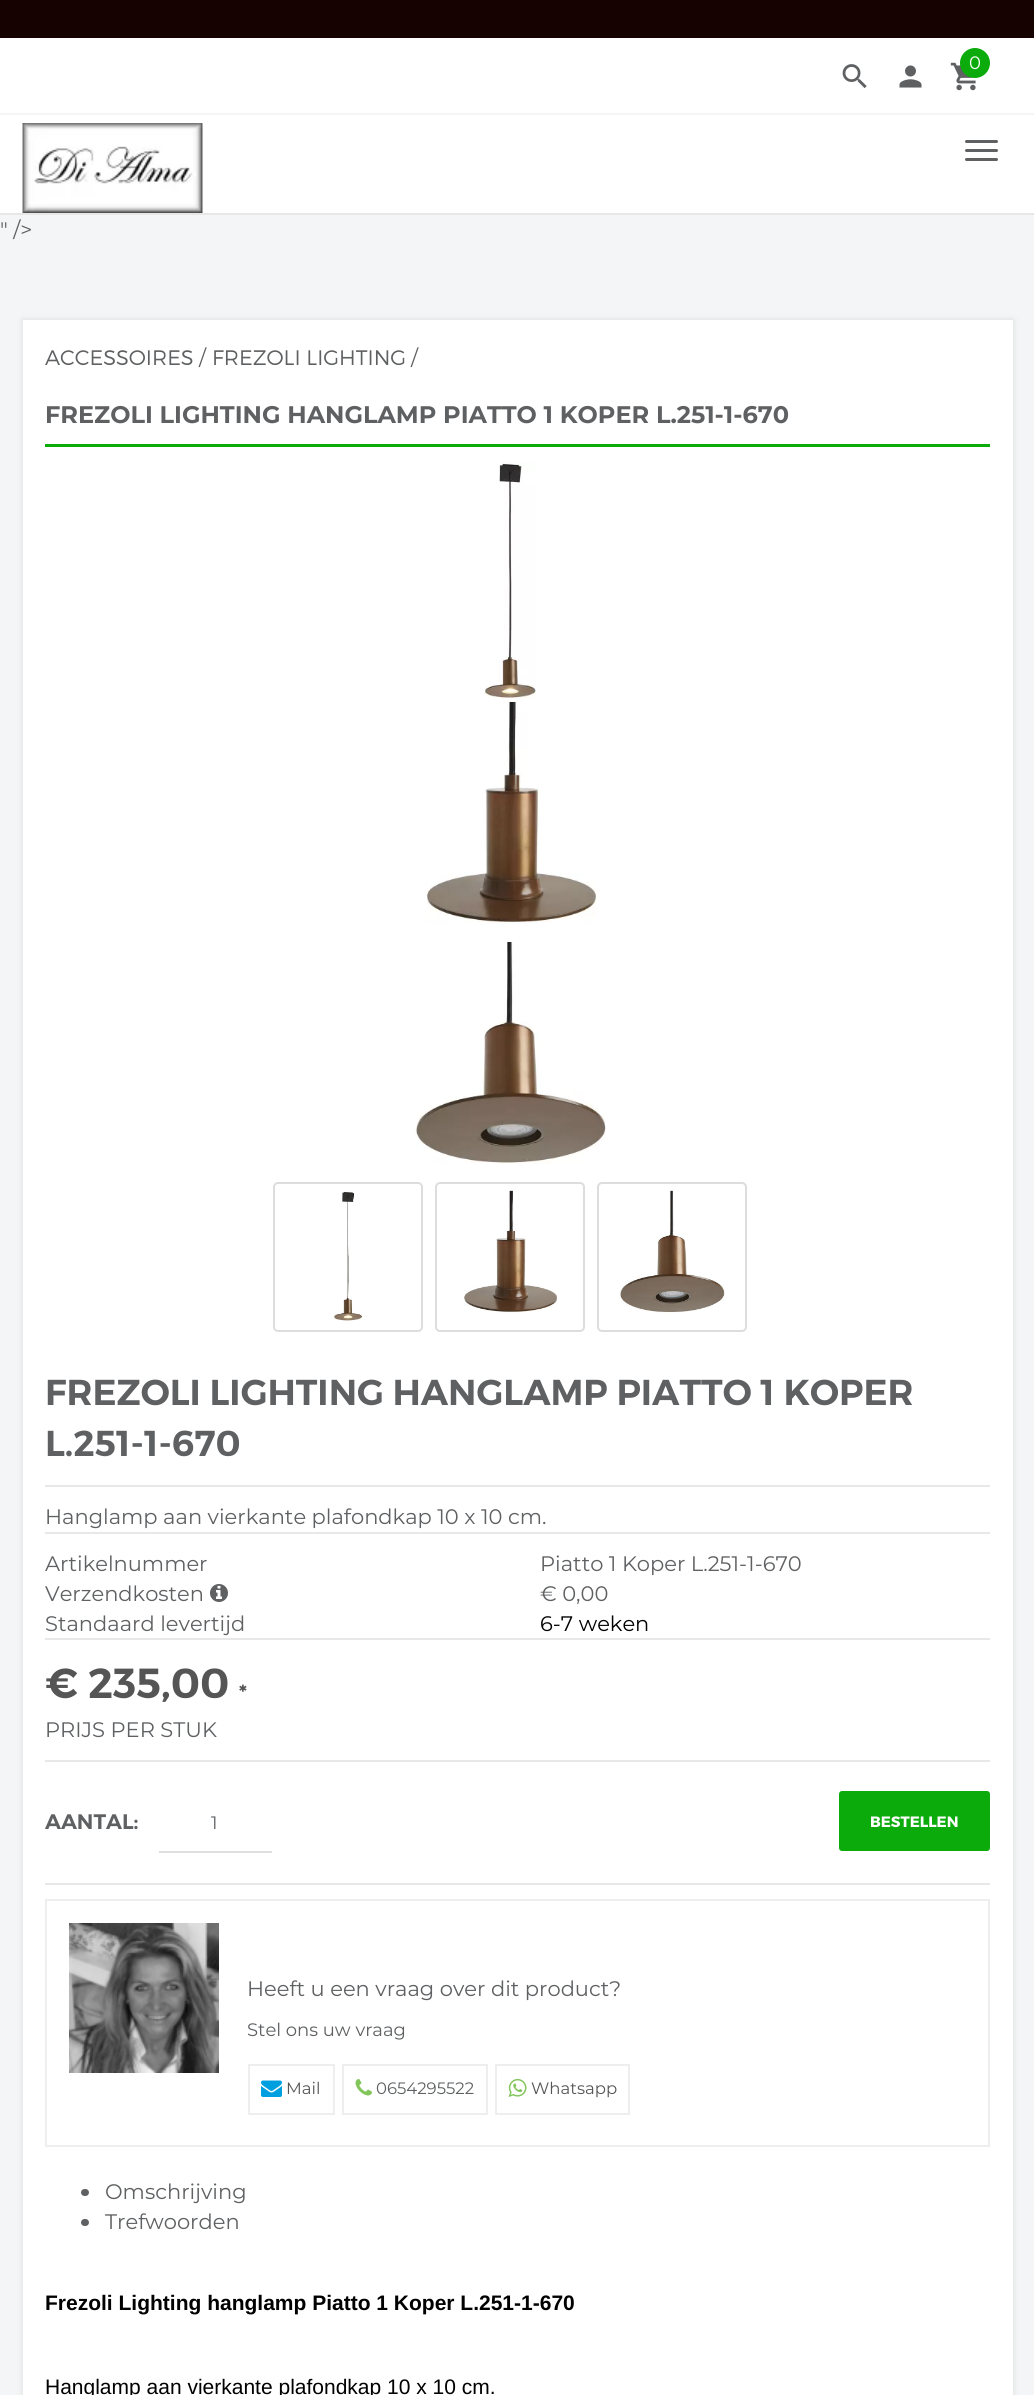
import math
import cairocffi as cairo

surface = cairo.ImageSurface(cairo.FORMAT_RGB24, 1034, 2395)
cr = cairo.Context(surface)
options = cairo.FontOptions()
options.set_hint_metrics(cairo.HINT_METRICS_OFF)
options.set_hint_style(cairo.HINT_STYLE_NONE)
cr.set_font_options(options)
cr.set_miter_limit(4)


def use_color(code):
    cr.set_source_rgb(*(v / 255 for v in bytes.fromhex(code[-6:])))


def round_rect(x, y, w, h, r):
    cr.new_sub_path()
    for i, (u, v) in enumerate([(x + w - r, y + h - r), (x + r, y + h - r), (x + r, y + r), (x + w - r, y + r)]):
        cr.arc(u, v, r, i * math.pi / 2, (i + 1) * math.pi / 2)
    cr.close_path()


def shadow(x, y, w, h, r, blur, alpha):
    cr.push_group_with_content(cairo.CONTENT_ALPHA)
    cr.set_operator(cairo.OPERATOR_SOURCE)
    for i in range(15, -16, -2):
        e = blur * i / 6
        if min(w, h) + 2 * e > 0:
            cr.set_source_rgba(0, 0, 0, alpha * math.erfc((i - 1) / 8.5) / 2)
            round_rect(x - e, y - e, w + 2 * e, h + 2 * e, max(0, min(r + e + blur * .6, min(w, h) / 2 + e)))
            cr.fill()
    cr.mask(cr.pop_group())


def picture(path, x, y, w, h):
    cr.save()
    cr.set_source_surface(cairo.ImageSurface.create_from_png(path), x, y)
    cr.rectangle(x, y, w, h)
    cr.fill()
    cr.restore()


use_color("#f4f5f6")
cr.paint()
use_color("#ffffff")
cr.rectangle(0, 38, 1034, 175)
cr.fill()
use_color("#e7e7e7")
cr.rectangle(0, 213, 1034, 2)
cr.fill()
use_color("#170202")
cr.rectangle(0, 0, 1034, 38)
cr.fill()
picture("img1.png", 842, 64, 25, 25)
picture("img2.png", 899, 65, 23, 23)
picture("img3.png", 950, 62, 26, 29)
use_color("#0cab0c")
cr.arc(975, 63, 15, 0, 2 * math.pi)
cr.fill()
cr.select_font_face("Montserrat")
cr.set_font_size(18)
use_color("#ffffff")
cr.move_to(969, 69)
cr.show_text("0")
use_color("#f4f5f6")
cr.rectangle(0, 113, 1034, 2)
cr.fill()
picture("img4.png", 22, 123, 181, 90)
use_color("#5e6062")
round_rect(965, 140, 33, 3, 1.5)
cr.fill()
round_rect(965, 149, 33, 3, 1.5)
cr.fill()
round_rect(965, 158, 33, 3, 1.5)
cr.fill()
cr.set_font_size(21)
cr.move_to(0, 237)
cr.show_text("\" />")
use_color("#bdbdbd")
shadow(23, 320, 990, 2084, 0, 3, 0.5)
use_color("#ffffff")
cr.rectangle(23, 320, 990, 2075)
cr.fill()
use_color("#0cab0c")
cr.rectangle(45, 444, 945, 3)
cr.fill()
cr.select_font_face("Montserrat Light")
use_color("#5e6062")
cr.move_to(45, 365)
cr.show_text("ACCESSOIRES")
cr.select_font_face("Montserrat")
cr.move_to(199, 365)
cr.show_text("/")
cr.select_font_face("Montserrat Light")
cr.move_to(212, 365)
cr.show_text("FREZOLI LIGHTING")
cr.select_font_face("Montserrat")
cr.move_to(411, 365)
cr.show_text("/")
cr.select_font_face("Montserrat", cairo.FONT_SLANT_NORMAL, cairo.FONT_WEIGHT_BOLD)
cr.set_font_size(24)
cr.move_to(45, 423)
cr.show_text("FREZOLI LIGHTING HANGLAMP PIATTO 1 KOPER L.251-1-670")
picture("img5.png", 484, 462, 52, 237)
picture("img6.png", 427, 702, 171, 222)
picture("img7.png", 415, 942, 191, 222)
round_rect(274, 1183, 148, 148, 4)
use_color("#dddddd")
cr.stroke()
picture("img8.png", 334, 1191, 29, 130)
round_rect(436, 1183, 148, 148, 4)
cr.stroke()
picture("img9.png", 464, 1190, 94, 123)
round_rect(598, 1183, 148, 148, 4)
cr.stroke()
picture("img10.png", 620, 1190, 105, 123)
cr.select_font_face("Montserrat SemiBold")
cr.set_font_size(36)
use_color("#5e6062")
cr.move_to(45, 1405)
cr.show_text("FREZOLI LIGHTING HANGLAMP PIATTO 1 KOPER")
cr.move_to(45, 1456)
cr.show_text("L.251-1-670")
use_color("#e8e8e8")
cr.rectangle(45, 1485, 945, 2)
cr.fill()
cr.select_font_face("Montserrat")
cr.set_font_size(21)
use_color("#5e6062")
cr.move_to(45, 1524)
cr.show_text("Hanglamp aan vierkante plafondkap 10 x 10 cm.")
use_color("#e8e8e8")
cr.rectangle(45, 1532, 945, 2)
cr.fill()
use_color("#5e6062")
cr.move_to(45, 1571)
cr.show_text("Artikelnummer")
cr.move_to(540, 1571)
cr.show_text("Piatto 1 Koper L.251-1-670")
cr.move_to(45, 1601)
cr.show_text("Verzendkosten")
picture("img11.png", 210, 1584, 18, 18)
cr.move_to(540, 1601)
cr.show_text("€ 0,00")
cr.move_to(45, 1631)
cr.show_text("Standaard levertijd")
use_color("#000000")
cr.move_to(540, 1631)
cr.show_text("6-7 weken")
use_color("#e8e8e8")
cr.rectangle(45, 1638, 945, 2)
cr.fill()
cr.select_font_face("Montserrat SemiBold")
cr.set_font_size(42)
use_color("#555555")
cr.move_to(45, 1698)
cr.show_text("€ 235,00")
cr.select_font_face("Montserrat", cairo.FONT_SLANT_NORMAL, cairo.FONT_WEIGHT_BOLD)
cr.set_font_size(18)
cr.move_to(239, 1698)
cr.show_text("*")
cr.select_font_face("Montserrat")
cr.set_font_size(21)
use_color("#5e6062")
cr.move_to(45, 1737)
cr.show_text("PRIJS PER STUK")
use_color("#e8e8e8")
cr.rectangle(45, 1760, 945, 2)
cr.fill()
cr.select_font_face("Montserrat SemiBold")
use_color("#5e6062")
cr.move_to(45, 1829)
cr.show_text("AANTAL:")
use_color("#dfdfdf")
cr.rectangle(159, 1851, 113, 2)
cr.fill()
cr.select_font_face("Montserrat")
cr.set_font_size(18)
use_color("#5e6062")
cr.move_to(211, 1829)
cr.show_text("1")
use_color("#0cab0c")
round_rect(840, 1792, 149, 58, 2)
cr.fill_preserve()
cr.stroke()
cr.select_font_face("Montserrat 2", cairo.FONT_SLANT_NORMAL, cairo.FONT_WEIGHT_BOLD)
cr.set_font_size(15)
use_color("#ffffff")
cr.move_to(870, 1827)
cr.show_text("BESTELLEN")
use_color("#e8e8e8")
cr.rectangle(45, 1883, 945, 2)
cr.fill()
cr.rectangle(46, 1900, 943, 246)
use_color("#eeeeee")
cr.stroke()
picture("img12.png", 69, 1923, 150, 150)
cr.select_font_face("Montserrat")
cr.set_font_size(21)
use_color("#5e6062")
cr.move_to(247, 1996)
cr.show_text("Heeft u een vraag over dit product?")
cr.set_font_size(18)
cr.move_to(247, 2036)
cr.show_text("Stel ons uw vraag")
cr.rectangle(249, 2065, 85, 49)
use_color("#eeeeee")
cr.stroke()
picture("img13.png", 261, 2080, 21, 17)
cr.set_font_size(16.5)
use_color("#555555")
cr.move_to(286, 2094)
cr.show_text("Mail")
cr.rectangle(343, 2065, 144, 49)
use_color("#eeeeee")
cr.stroke()
picture("img14.png", 355, 2079, 17, 17)
use_color("#5e6062")
cr.move_to(376, 2094)
cr.show_text("0654295522")
cr.rectangle(496, 2065, 133, 49)
use_color("#eeeeee")
cr.stroke()
picture("img15.png", 508, 2078, 19, 19)
use_color("#555555")
cr.move_to(531, 2094)
cr.show_text("Whatsapp")
use_color("#5e6062")
round_rect(81, 2189, 8, 7, 3.5)
cr.fill()
cr.set_font_size(21)
cr.move_to(105, 2199)
cr.show_text("Omschrijving")
round_rect(81, 2219, 8, 7, 3.5)
cr.fill()
cr.move_to(105, 2229)
cr.show_text("Trefwoorden")
cr.select_font_face("Liberation Sans", cairo.FONT_SLANT_NORMAL, cairo.FONT_WEIGHT_BOLD)
use_color("#000000")
cr.move_to(45, 2310)
cr.show_text("Frezoli Lighting hanglamp Piatto 1 Koper L.251-1-670")
cr.select_font_face("Liberation Sans")
cr.move_to(45, 2394)
cr.show_text("Hanglamp aan vierkante plafondkap 10 x 10 cm.")
surface.write_to_png("result.png")
